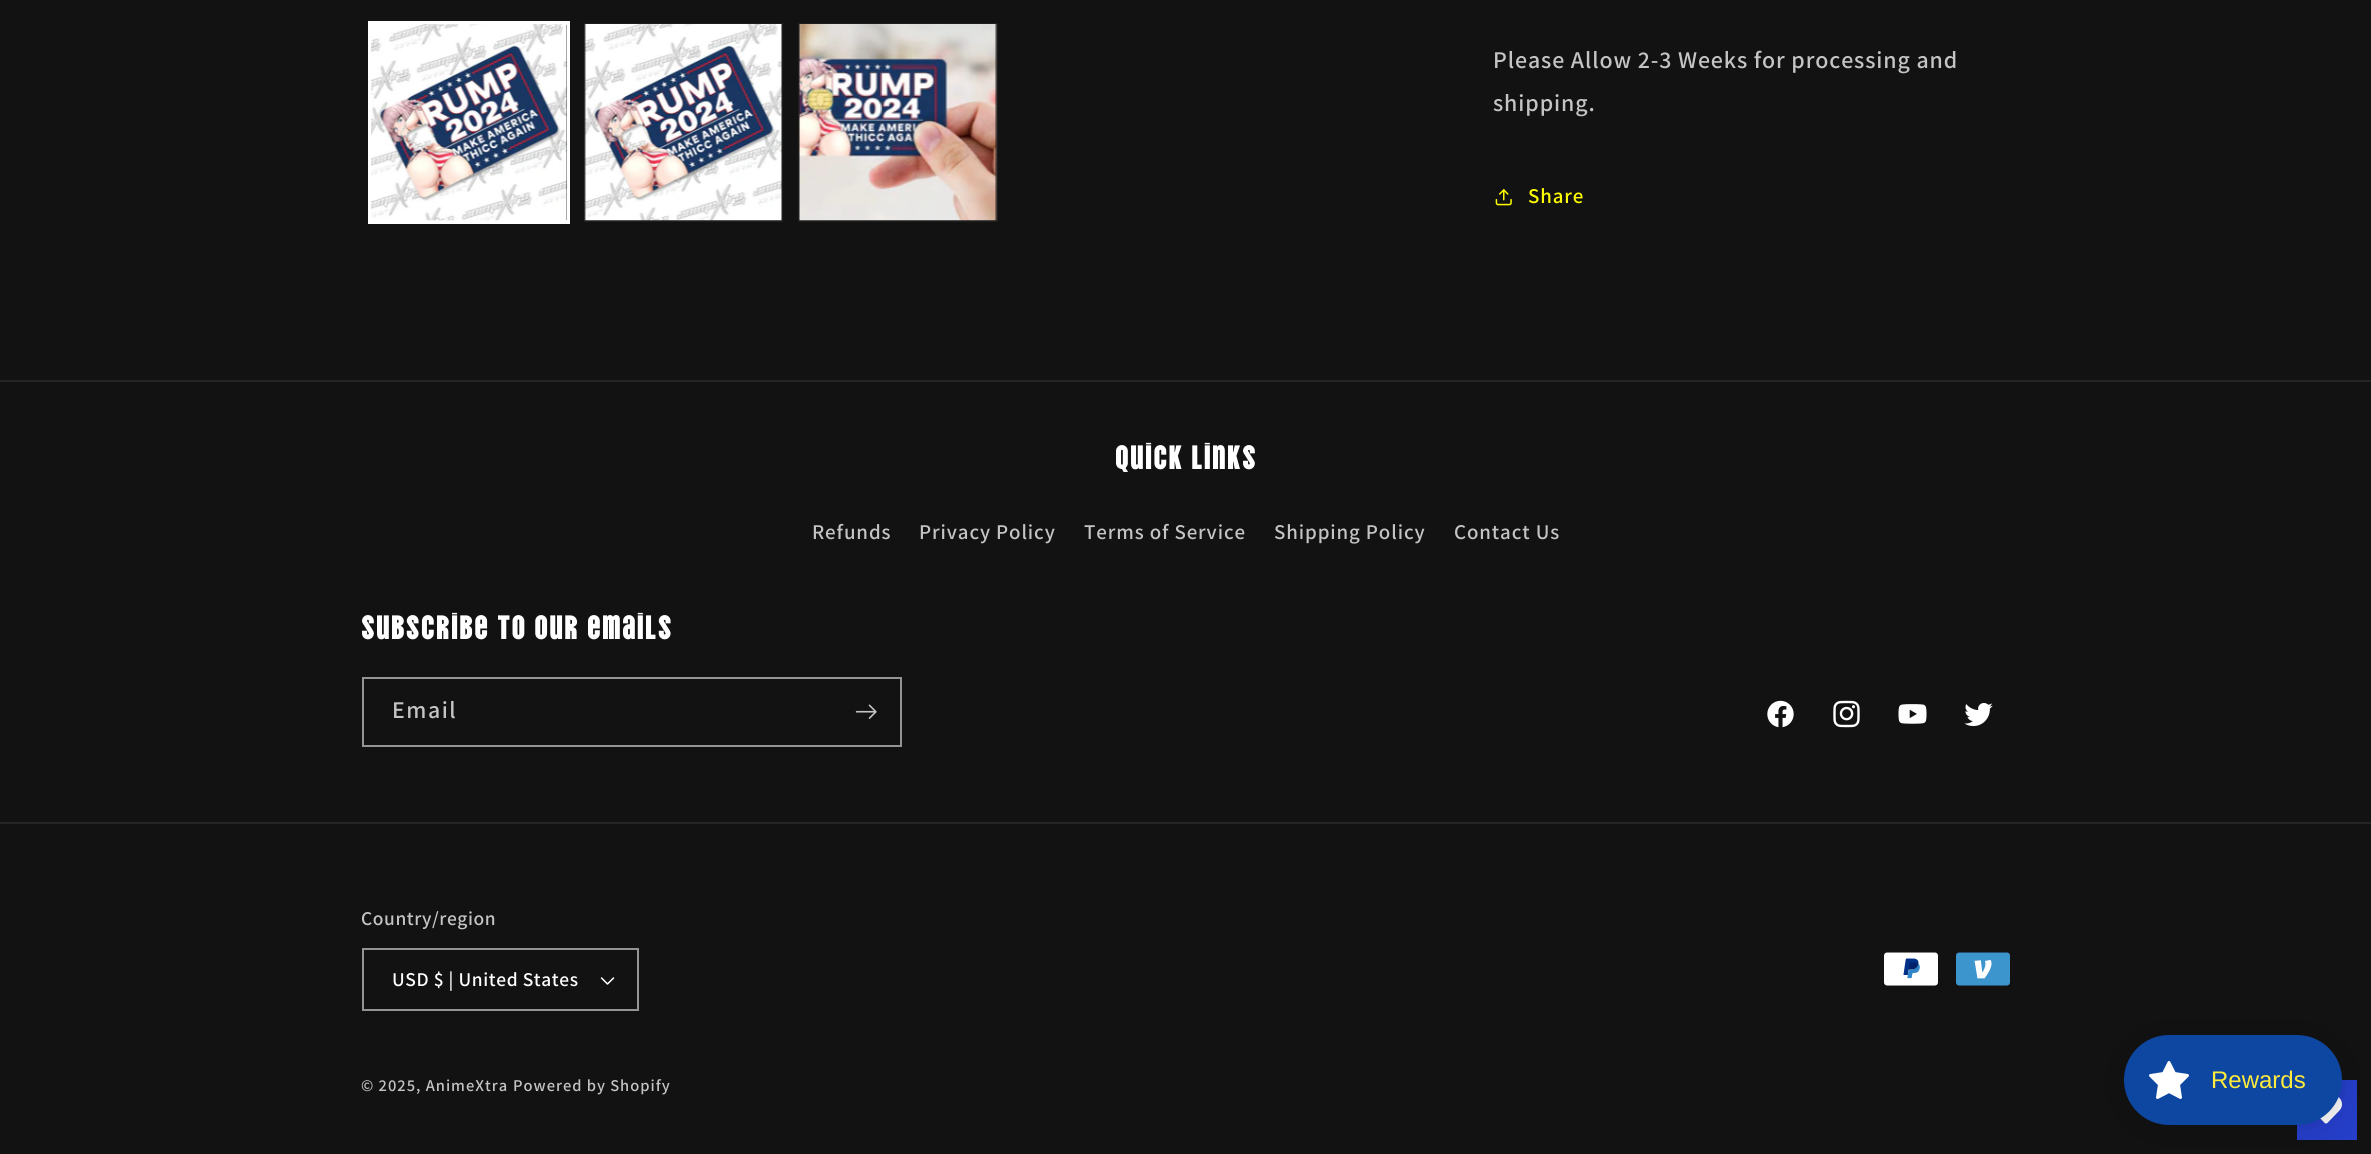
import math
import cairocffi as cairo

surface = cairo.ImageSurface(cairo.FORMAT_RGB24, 2371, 1154)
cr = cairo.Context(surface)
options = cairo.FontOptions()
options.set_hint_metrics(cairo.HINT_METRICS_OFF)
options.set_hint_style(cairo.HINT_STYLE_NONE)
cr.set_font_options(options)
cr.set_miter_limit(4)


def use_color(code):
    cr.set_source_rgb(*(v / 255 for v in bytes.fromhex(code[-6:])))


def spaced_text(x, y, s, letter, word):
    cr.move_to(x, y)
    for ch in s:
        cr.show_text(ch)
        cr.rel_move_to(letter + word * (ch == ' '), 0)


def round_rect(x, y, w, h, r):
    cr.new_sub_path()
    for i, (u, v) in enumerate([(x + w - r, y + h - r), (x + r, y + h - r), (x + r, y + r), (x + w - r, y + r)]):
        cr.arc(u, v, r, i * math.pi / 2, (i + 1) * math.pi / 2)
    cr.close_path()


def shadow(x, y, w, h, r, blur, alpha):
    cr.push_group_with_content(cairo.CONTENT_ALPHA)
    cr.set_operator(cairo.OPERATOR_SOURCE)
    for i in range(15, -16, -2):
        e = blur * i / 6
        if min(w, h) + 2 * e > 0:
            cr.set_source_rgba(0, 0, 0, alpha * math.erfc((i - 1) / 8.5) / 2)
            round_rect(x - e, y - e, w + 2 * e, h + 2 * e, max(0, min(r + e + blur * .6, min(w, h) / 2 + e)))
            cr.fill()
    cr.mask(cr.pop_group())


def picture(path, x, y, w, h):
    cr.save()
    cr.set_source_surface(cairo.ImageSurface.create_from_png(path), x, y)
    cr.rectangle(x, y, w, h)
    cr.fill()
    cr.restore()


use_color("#121212")
cr.paint()
cr.rectangle(369, 22, 200, 201)
use_color("#ffffff")
cr.stroke()
cr.rectangle(370, 24, 198, 197)
cr.stroke()
picture("img1.png", 371, 24, 197, 197)
cr.rectangle(585, 24, 197, 197)
use_color("#1e1e1e")
cr.stroke()
picture("img2.png", 584, 24, 198, 197)
cr.rectangle(799, 24, 198, 197)
cr.stroke()
picture("img3.png", 799, 24, 198, 197)
cr.select_font_face("Assistant SemiBold")
cr.set_font_size(24)
use_color("#c4c4c4")
spaced_text(1493, 68, "Please Allow 2-3 Weeks for processing and", 0.9, 0)
spaced_text(1493, 111, "shipping.", 0.9, 0)
picture("img4.png", 1495, 189, 17, 17)
cr.set_font_size(21)
use_color("#ffff00")
spaced_text(1528, 203, "Share", 0.9, 0)
use_color("#252525")
cr.rectangle(0, 380, 2371, 2)
cr.fill()
cr.select_font_face("Vina Sans")
cr.set_font_size(33.75)
use_color("#ffffff")
spaced_text(1115, 469, "Quick links", 1.1, 0)
cr.select_font_face("Assistant SemiBold")
cr.set_font_size(21)
use_color("#c4c4c4")
spaced_text(812, 539, "Refunds", 0.9, 0)
spaced_text(919, 539, "Privacy Policy", 0.9, 0)
spaced_text(1084, 539, "Terms of Service", 0.9, 0)
spaced_text(1274, 539, "Shipping Policy", 0.9, 0)
spaced_text(1454, 539, "Contact Us", 0.9, 0)
cr.select_font_face("Vina Sans")
cr.set_font_size(33.75)
use_color("#ffffff")
spaced_text(361, 639, "Subscribe to our emails", 1.1, 0)
cr.rectangle(363, 678, 538, 68)
use_color("#949494")
cr.stroke()
cr.select_font_face("Assistant SemiBold")
cr.set_font_size(24)
use_color("#c4c4c4")
spaced_text(392, 718, "Email", 1.5, 0)
picture("img5.png", 855, 704, 22, 15)
picture("img6.png", 1767, 700, 27, 28)
picture("img7.png", 1833, 700, 27, 28)
picture("img8.png", 1898, 704, 29, 20)
picture("img9.png", 1964, 703, 29, 24)
use_color("#252525")
cr.rectangle(0, 822, 2371, 2)
cr.fill()
cr.set_font_size(19.5)
use_color("#c4c4c4")
spaced_text(361, 925, "Country/region", 0.6, 0)
picture("img10.png", 600, 977, 15, 8)
cr.rectangle(363, 949, 275, 61)
use_color("#949494")
cr.stroke()
use_color("#ffffff")
spaced_text(392, 986, "USD $ | United States", 0.6, 0)
picture("img11.png", 1884, 952, 54, 34)
picture("img12.png", 1956, 952, 54, 34)
cr.set_font_size(16.5)
use_color("#c4c4c4")
spaced_text(361, 1091, "© 2025, AnimeXtra", 1, 0)
spaced_text(513, 1091, "Powered by Shopify", 1, 0)
use_color("#263fcc")
cr.rectangle(2297, 1080, 60, 60)
cr.fill()
picture("img14.png", 2320, 1096, 22, 28)
use_color("#000000")
shadow(2124, 1038, 218, 90, 45, 22.5, 0.15)
shadow(2124, 1037, 218, 90, 45, 4.5, 0.05)
use_color("#0d47a1")
round_rect(2124, 1035, 218, 90, 45)
cr.fill()
picture("img13.png", 2149, 1061, 40, 38)
cr.select_font_face("Liberation Sans")
cr.set_font_size(24)
use_color("#ffeb3b")
cr.move_to(2211, 1088)
cr.show_text("Rewards")
surface.write_to_png("result.png")
